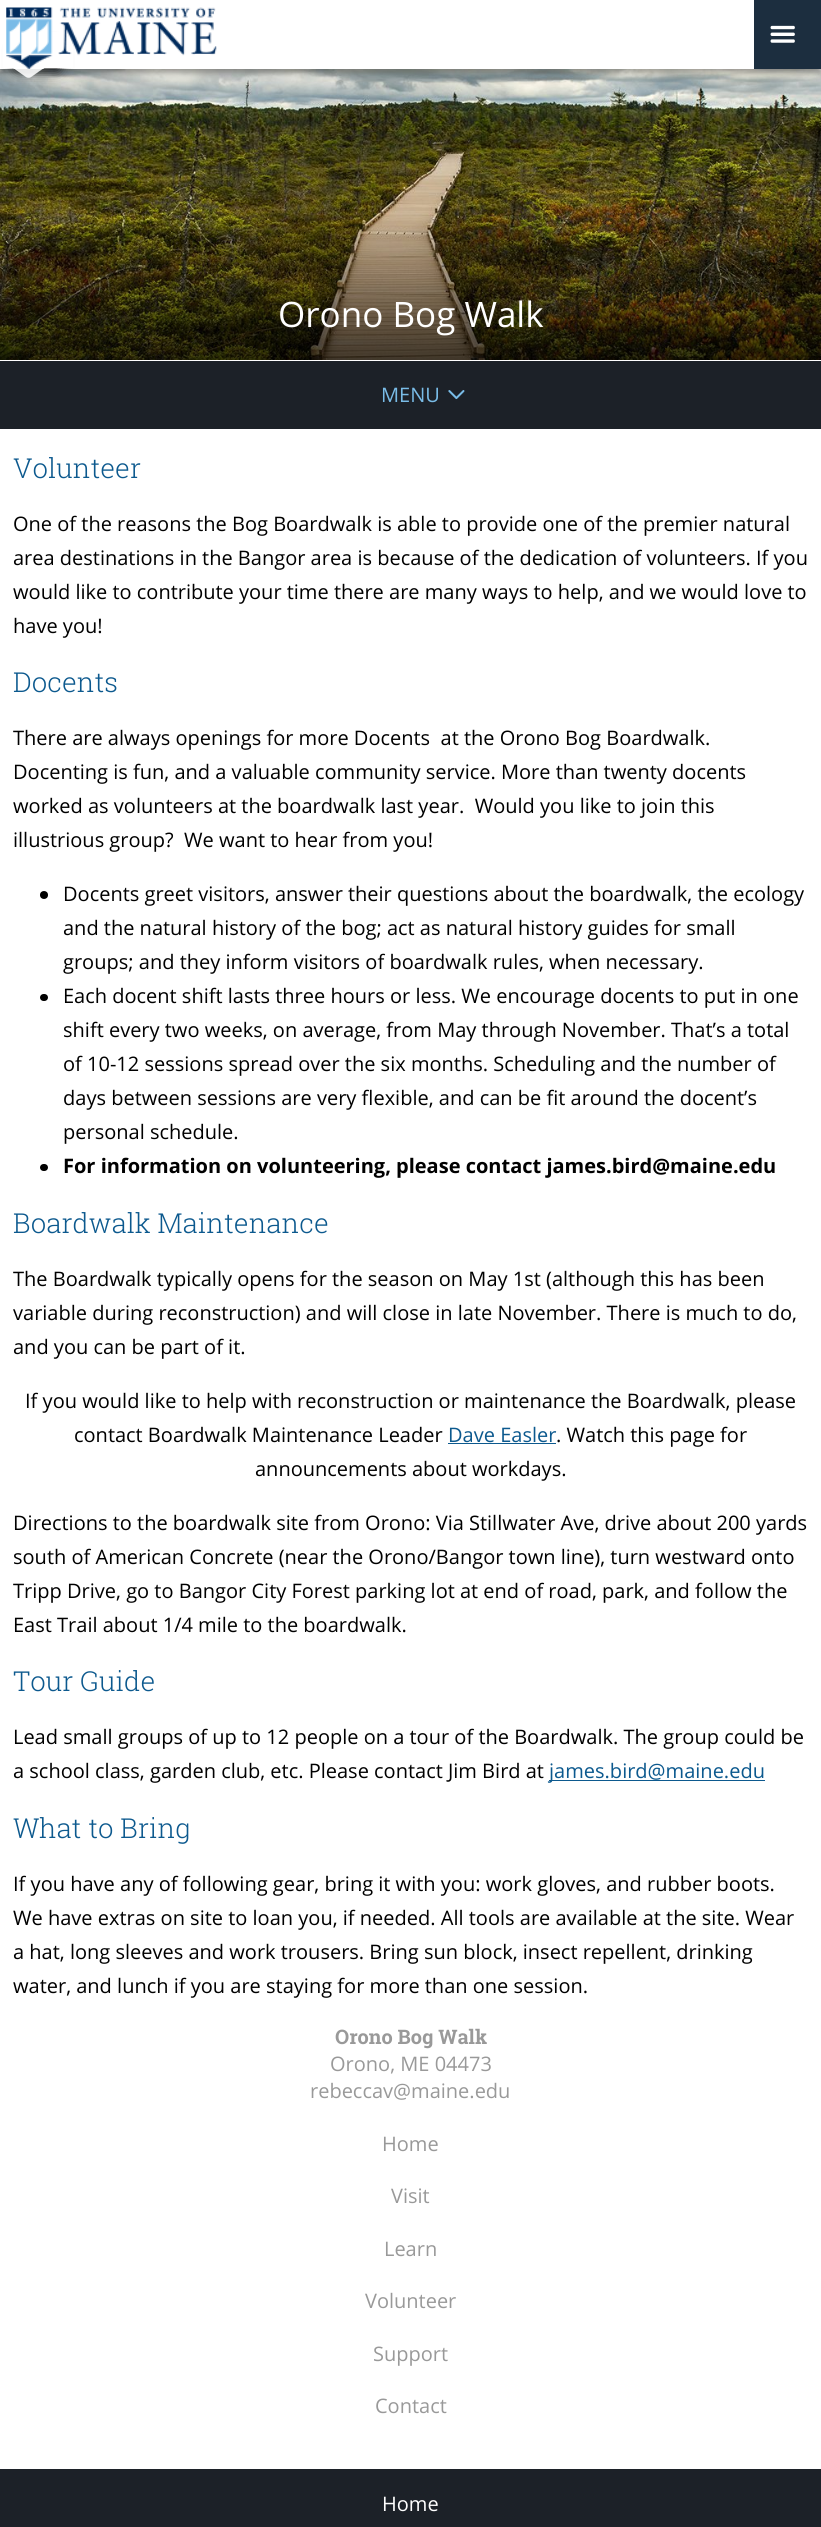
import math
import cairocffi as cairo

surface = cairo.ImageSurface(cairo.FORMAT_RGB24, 821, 2527)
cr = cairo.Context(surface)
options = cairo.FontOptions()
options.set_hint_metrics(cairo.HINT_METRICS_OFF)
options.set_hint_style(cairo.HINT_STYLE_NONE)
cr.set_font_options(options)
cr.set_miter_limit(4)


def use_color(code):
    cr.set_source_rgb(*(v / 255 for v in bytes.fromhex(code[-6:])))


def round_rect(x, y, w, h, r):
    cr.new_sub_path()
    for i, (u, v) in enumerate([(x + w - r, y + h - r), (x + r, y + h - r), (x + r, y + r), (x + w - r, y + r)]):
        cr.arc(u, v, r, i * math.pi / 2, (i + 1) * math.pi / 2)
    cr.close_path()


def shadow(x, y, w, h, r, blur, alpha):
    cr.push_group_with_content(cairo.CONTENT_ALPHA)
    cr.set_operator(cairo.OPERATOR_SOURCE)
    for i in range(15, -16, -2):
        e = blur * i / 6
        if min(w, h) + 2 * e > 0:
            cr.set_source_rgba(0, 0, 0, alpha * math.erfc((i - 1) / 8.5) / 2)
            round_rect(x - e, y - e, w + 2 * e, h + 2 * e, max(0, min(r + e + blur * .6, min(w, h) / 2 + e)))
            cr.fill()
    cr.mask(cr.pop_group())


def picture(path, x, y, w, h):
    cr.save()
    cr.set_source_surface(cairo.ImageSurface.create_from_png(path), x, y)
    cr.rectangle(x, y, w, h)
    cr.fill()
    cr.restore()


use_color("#ffffff")
cr.paint()
picture("img3.png", 0, 69, 821, 291)
use_color("#000000")
shadow(0, 4, 821, 69, 0, 3, 0.35)
use_color("#ffffff")
cr.rectangle(0, 0, 754, 69)
cr.fill()
cr.save()
cr.set_fill_rule(cairo.FILL_RULE_EVEN_ODD)
cr.new_path()
cr.move_to(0, 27)
cr.line_to(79, 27)
cr.line_to(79, 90)
cr.line_to(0, 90)
cr.close_path()
cr.move_to(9, 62)
cr.line_to(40.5, 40)
cr.curve_to(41.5, 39, 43.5, 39.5, 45, 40)
cr.line_to(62.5, 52.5)
cr.curve_to(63.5, 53, 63.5, 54.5, 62.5, 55.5)
cr.line_to(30.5, 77.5)
cr.curve_to(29.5, 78.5, 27.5, 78, 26.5, 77.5)
cr.line_to(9, 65)
cr.curve_to(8, 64.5, 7.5, 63, 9, 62)
cr.close_path()
cr.clip()
use_color("#000000")
shadow(16, 46, 44, 25, 2.5, 6, 0.85)
cr.restore()
cr.set_source_rgba(1, 1, 1, 0.85)
cr.new_path()
cr.move_to(9, 62)
cr.line_to(41, 40)
cr.curve_to(42, 39, 44, 39, 45, 40)
cr.line_to(62, 52)
cr.curve_to(63, 53, 64, 54, 62, 55)
cr.line_to(31, 77)
cr.curve_to(30, 78, 28, 78, 26, 77)
cr.line_to(9, 65)
cr.curve_to(8, 64, 8, 63, 9, 62)
cr.close_path()
cr.fill()
use_color("#ffffff")
cr.rectangle(3, 32, 70, 36)
cr.fill()
picture("img1.png", 6, 7, 211, 62)
use_color("#1c2e3f")
cr.rectangle(754, 0, 67, 69)
cr.fill()
picture("img2.png", 770, 25, 25, 18)
use_color("#1c2128")
cr.rectangle(0, 361, 821, 68)
cr.fill()
cr.select_font_face("Open Sans")
cr.set_font_size(35)
use_color("#ffffff")
cr.move_to(278, 327)
cr.show_text("Orono Bog Walk")
cr.set_font_size(20)
use_color("#79bce7")
cr.move_to(381, 402)
cr.show_text("MENU")
picture("img4.png", 448, 390, 17, 10)
cr.select_font_face("Roboto Slab Light")
cr.set_font_size(27.5)
use_color("#0c598e")
cr.move_to(13, 478)
cr.show_text("Volunteer")
cr.select_font_face("Open Sans")
cr.set_font_size(20)
use_color("#000000")
cr.move_to(13, 531)
cr.show_text("One of the reasons the Bog Boardwalk is able to provide one of the premier natural")
cr.move_to(13, 565)
cr.show_text("area destinations in the Bangor area is because of the dedication of volunteers. If you")
cr.move_to(13, 599)
cr.show_text("would like to contribute your time there are many ways to help, and we would love to")
cr.move_to(13, 633)
cr.show_text("have you!")
cr.select_font_face("Roboto Slab Light")
cr.set_font_size(27.5)
use_color("#0c598e")
cr.move_to(13, 692)
cr.show_text("Docents")
cr.select_font_face("Open Sans")
cr.set_font_size(20)
use_color("#000000")
cr.move_to(13, 745)
cr.show_text("There are always openings for more Docents  at the Orono Bog Boardwalk.")
cr.move_to(13, 779)
cr.show_text("Docenting is fun, and a valuable community service. More than twenty docents")
cr.move_to(13, 813)
cr.show_text("worked as volunteers at the boardwalk last year.  Would you like to join this")
cr.move_to(13, 847)
cr.show_text("illustrious group?  We want to hear from you!")
cr.new_path()
cr.arc(44, 895, 4, 0, 2 * math.pi)
cr.fill()
cr.move_to(63, 901)
cr.show_text("Docents greet visitors, answer their questions about the boardwalk, the ecology")
cr.move_to(63, 935)
cr.show_text("and the natural history of the bog; act as natural history guides for small")
cr.move_to(63, 969)
cr.show_text("groups; and they inform visitors of boardwalk rules, when necessary.")
round_rect(40, 994, 8, 7, 3.5)
cr.fill()
cr.move_to(63, 1003)
cr.show_text("Each docent shift lasts three hours or less. We encourage docents to put in one")
cr.move_to(63, 1037)
cr.show_text("shift every two weeks, on average, from May through November. That’s a total")
cr.move_to(63, 1071)
cr.show_text("of 10-12 sessions spread over the six months. Scheduling and the number of")
cr.move_to(63, 1105)
cr.show_text("days between sessions are very flexible, and can be fit around the docent’s")
cr.move_to(63, 1139)
cr.show_text("personal schedule.")
round_rect(40, 1164, 8, 7, 3.5)
cr.fill()
cr.select_font_face("Open Sans", cairo.FONT_SLANT_NORMAL, cairo.FONT_WEIGHT_BOLD)
cr.move_to(63, 1173)
cr.show_text("For information on volunteering, please contact james.bird@maine.edu")
cr.select_font_face("Roboto Slab Light")
cr.set_font_size(27.5)
use_color("#0c598e")
cr.move_to(13, 1233)
cr.show_text("Boardwalk Maintenance")
cr.select_font_face("Open Sans")
cr.set_font_size(20)
use_color("#000000")
cr.move_to(13, 1286)
cr.show_text("The Boardwalk typically opens for the season on May 1st (although this has been")
cr.move_to(13, 1320)
cr.show_text("variable during reconstruction) and will close in late November. There is much to do,")
cr.move_to(13, 1354)
cr.show_text("and you can be part of it.")
cr.move_to(25, 1408)
cr.show_text("If you would like to help with reconstruction or maintenance the Boardwalk, please")
cr.move_to(74, 1442)
cr.show_text("contact Boardwalk Maintenance Leader")
use_color("#0c598e")
cr.move_to(448, 1442)
cr.show_text("Dave Easler")
cr.rectangle(448, 1443, 108, 1)
cr.fill()
use_color("#000000")
cr.move_to(556, 1442)
cr.show_text(". Watch this page for")
cr.move_to(255, 1476)
cr.show_text("announcements about workdays.")
cr.move_to(13, 1530)
cr.show_text("Directions to the boardwalk site from Orono: Via Stillwater Ave, drive about 200 yards")
cr.move_to(13, 1564)
cr.show_text("south of American Concrete (near the Orono/Bangor town line), turn westward onto")
cr.move_to(13, 1598)
cr.show_text("Tripp Drive, go to Bangor City Forest parking lot at end of road, park, and follow the")
cr.move_to(13, 1632)
cr.show_text("East Trail about 1/4 mile to the boardwalk.")
cr.select_font_face("Roboto Slab Light")
cr.set_font_size(27.5)
use_color("#0c598e")
cr.move_to(13, 1691)
cr.show_text("Tour Guide")
cr.select_font_face("Open Sans")
cr.set_font_size(20)
use_color("#000000")
cr.move_to(13, 1744)
cr.show_text("Lead small groups of up to 12 people on a tour of the Boardwalk. The group could be")
cr.move_to(13, 1778)
cr.show_text("a school class, garden club, etc. Please contact Jim Bird at")
use_color("#0c598e")
cr.rectangle(549, 1780, 216, 1)
cr.fill()
cr.move_to(549, 1778)
cr.show_text("james.bird@maine.edu")
cr.select_font_face("Roboto Slab Light")
cr.set_font_size(27.5)
cr.move_to(13, 1838)
cr.show_text("What to Bring")
cr.select_font_face("Open Sans")
cr.set_font_size(20)
use_color("#000000")
cr.move_to(13, 1891)
cr.show_text("If you have any of following gear, bring it with you: work gloves, and rubber boots.")
cr.move_to(13, 1925)
cr.show_text("We have extras on site to loan you, if needed. All tools are available at the site. Wear")
cr.move_to(13, 1959)
cr.show_text("a hat, long sleeves and work trousers. Bring sun block, insect repellent, drinking")
cr.move_to(13, 1993)
cr.show_text("water, and lunch if you are staying for more than one session.")
cr.select_font_face("Roboto Slab", cairo.FONT_SLANT_NORMAL, cairo.FONT_WEIGHT_BOLD)
use_color("#999999")
cr.move_to(335, 2044)
cr.show_text("Orono Bog Walk")
cr.select_font_face("Open Sans")
cr.move_to(330, 2071)
cr.show_text("Orono, ME 04473")
cr.move_to(310, 2098)
cr.show_text("rebeccav@maine.edu")
cr.move_to(382, 2151)
cr.show_text("Home")
cr.move_to(391, 2203)
cr.show_text("Visit")
cr.move_to(384, 2256)
cr.show_text("Learn")
cr.move_to(365, 2308)
cr.show_text("Volunteer")
cr.move_to(373, 2361)
cr.show_text("Support")
cr.move_to(375, 2413)
cr.show_text("Contact")
use_color("#1c2128")
cr.rectangle(0, 2469, 821, 58)
cr.fill()
use_color("#ffffff")
cr.move_to(382, 2511)
cr.show_text("Home")
surface.write_to_png("result.png")
